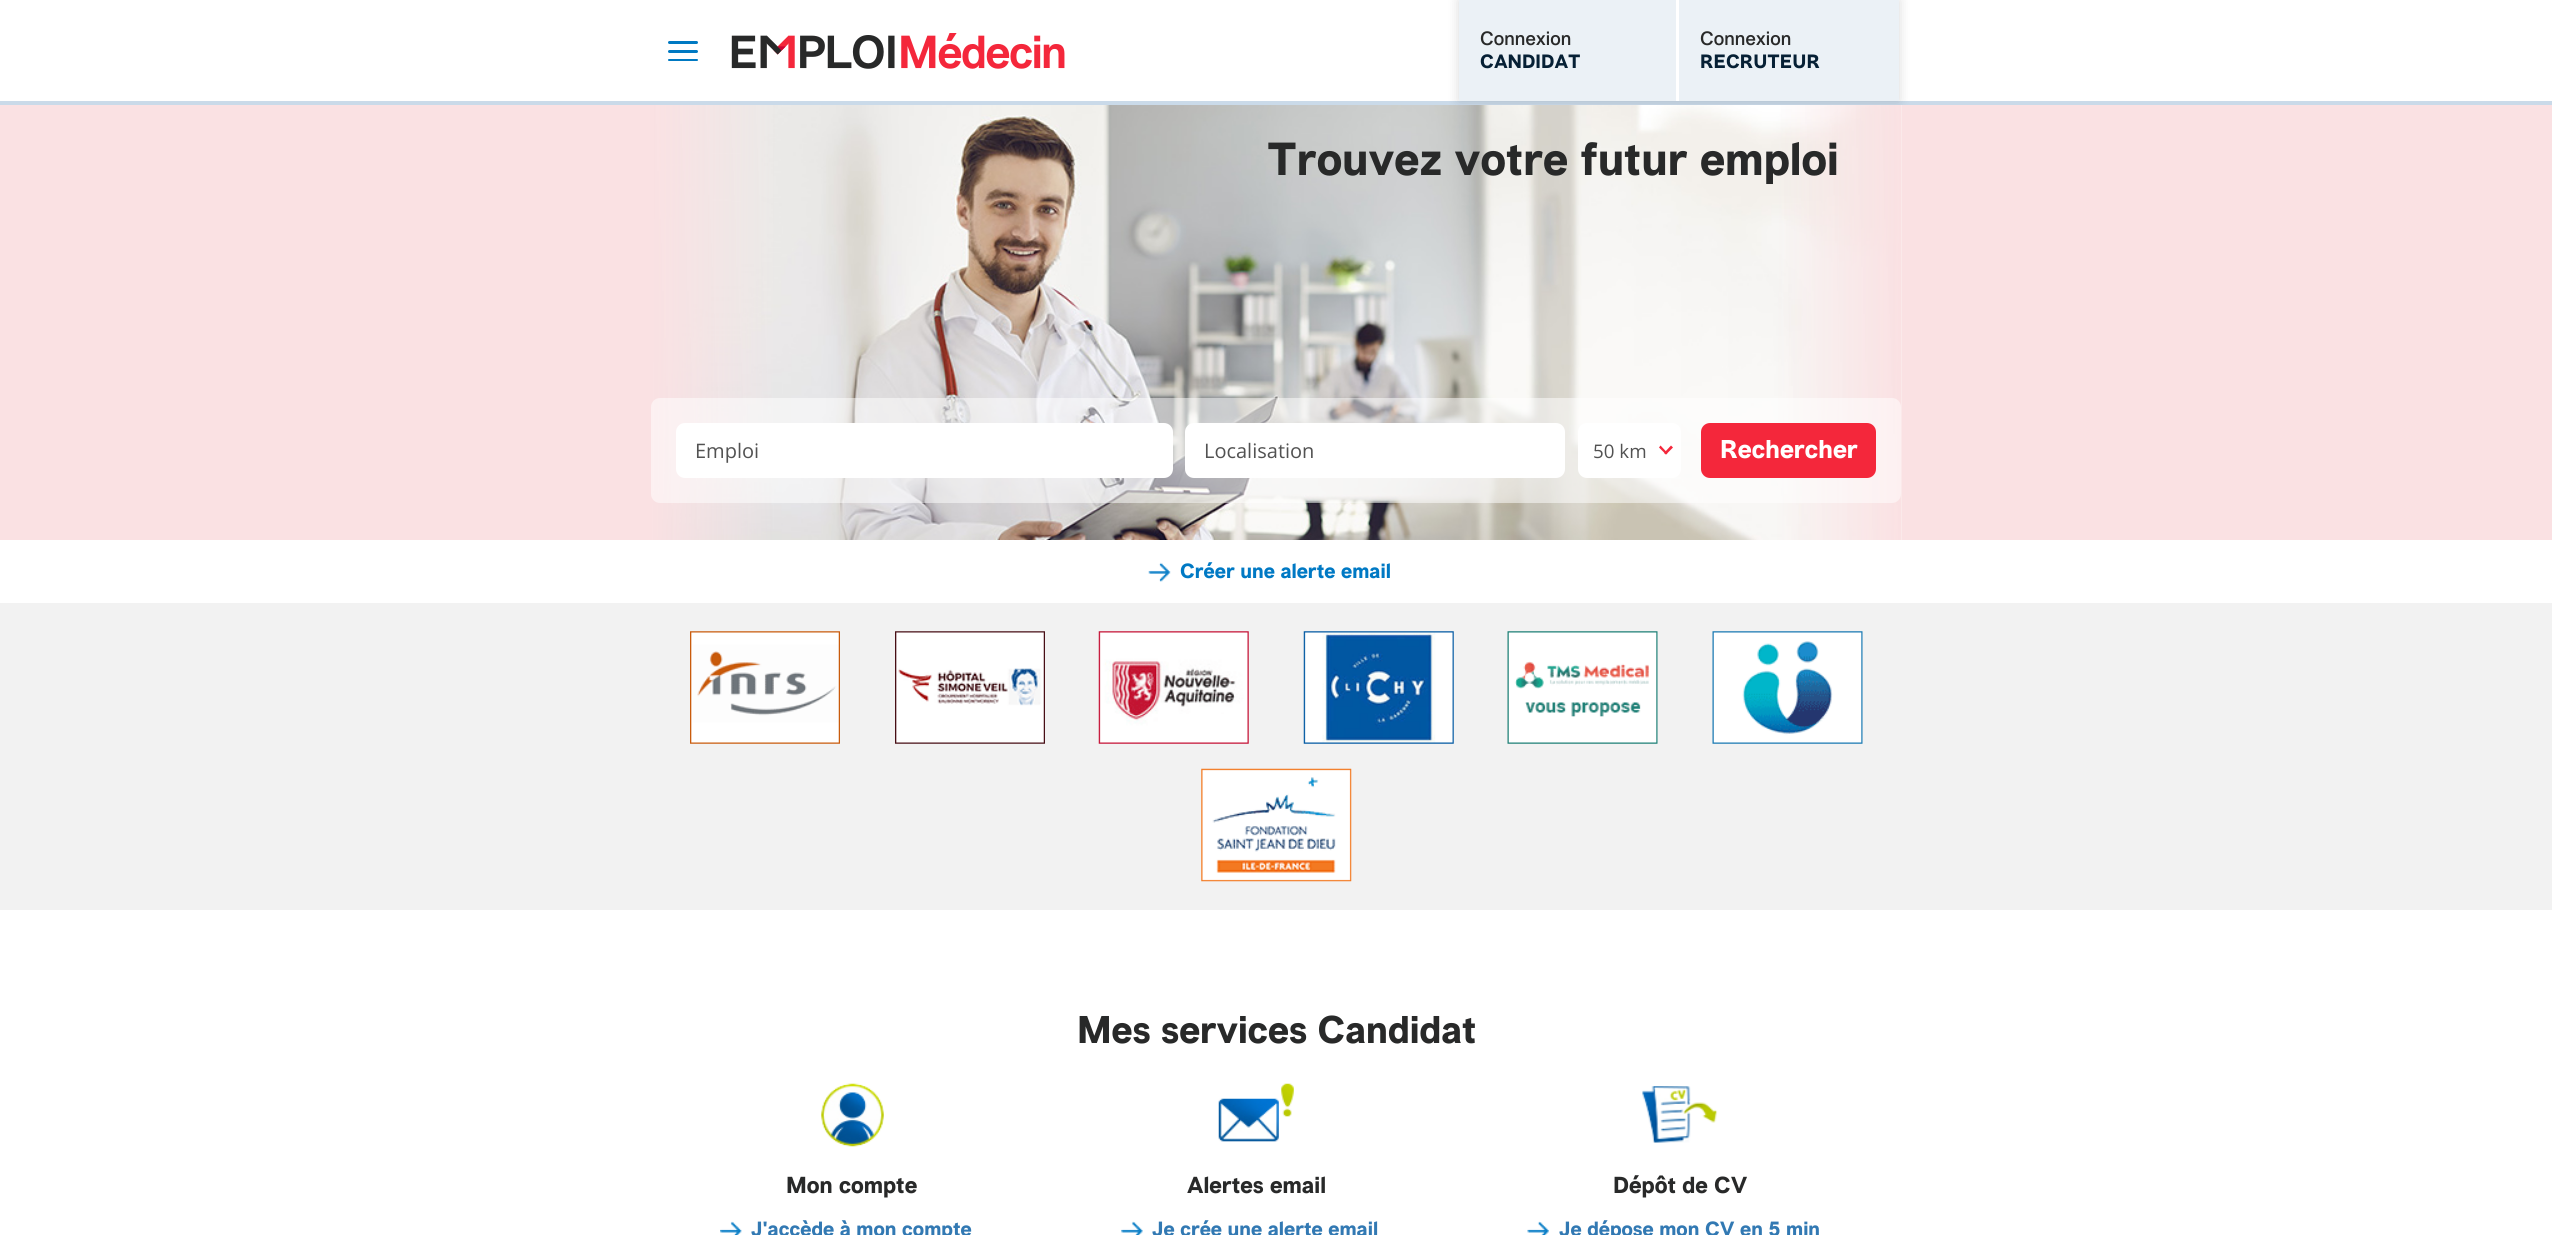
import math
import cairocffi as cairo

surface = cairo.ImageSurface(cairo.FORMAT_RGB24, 2552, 1235)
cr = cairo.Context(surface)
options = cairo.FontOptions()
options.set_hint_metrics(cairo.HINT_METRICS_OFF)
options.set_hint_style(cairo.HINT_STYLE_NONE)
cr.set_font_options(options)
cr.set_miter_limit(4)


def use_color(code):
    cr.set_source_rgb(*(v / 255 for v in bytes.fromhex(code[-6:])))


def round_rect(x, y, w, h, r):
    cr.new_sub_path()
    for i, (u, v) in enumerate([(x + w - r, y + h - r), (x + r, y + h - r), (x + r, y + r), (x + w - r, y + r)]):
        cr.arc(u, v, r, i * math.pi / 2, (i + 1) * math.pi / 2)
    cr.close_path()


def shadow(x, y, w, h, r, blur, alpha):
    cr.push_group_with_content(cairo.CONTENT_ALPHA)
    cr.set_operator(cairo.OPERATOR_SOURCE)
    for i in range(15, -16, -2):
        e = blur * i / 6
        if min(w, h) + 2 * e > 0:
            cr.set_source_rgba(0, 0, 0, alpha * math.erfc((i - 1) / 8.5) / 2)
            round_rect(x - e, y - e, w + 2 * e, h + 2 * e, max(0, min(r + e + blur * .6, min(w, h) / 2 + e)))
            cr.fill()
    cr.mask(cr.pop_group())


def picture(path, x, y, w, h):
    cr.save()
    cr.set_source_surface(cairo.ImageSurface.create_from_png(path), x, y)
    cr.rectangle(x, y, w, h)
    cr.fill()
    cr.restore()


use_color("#ffffff")
cr.paint()
use_color("#0079c2")
round_rect(668, 41, 30, 3, 1.5)
cr.fill()
round_rect(668, 50, 30, 3, 1.5)
cr.fill()
round_rect(668, 59, 30, 2, 1)
cr.fill()
picture("img1.png", 731, 33, 334, 36)
use_color("#cadae9")
cr.rectangle(0, 101, 2552, 4)
cr.fill()
use_color("#000000")
shadow(1459, 0, 440, 101, 0, 6, 0.15)
use_color("#ebf1f6")
cr.rectangle(1459, 0, 217, 101)
cr.fill()
use_color("#ffffff")
cr.rectangle(1676, 0, 3, 101)
cr.fill()
cr.select_font_face("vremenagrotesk")
cr.set_font_size(18.75)
use_color("#282929")
cr.move_to(1480, 45)
cr.show_text("Connexion")
cr.select_font_face("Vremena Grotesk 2")
use_color("#062035")
cr.move_to(1480, 68)
cr.show_text("CANDIDAT")
use_color("#ebf1f6")
cr.rectangle(1679, 0, 220, 101)
cr.fill()
cr.select_font_face("vremenagrotesk")
use_color("#282929")
cr.move_to(1700, 45)
cr.show_text("Connexion")
cr.select_font_face("Vremena Grotesk 2")
use_color("#062035")
cr.move_to(1700, 68)
cr.show_text("RECRUTEUR")
use_color("#fae1e3")
cr.rectangle(0, 105, 2552, 435)
cr.fill()
picture("img2.png", 652, 105, 1250, 435)
gradient = cairo.LinearGradient(651, 323, 1901, 322)
gradient.add_color_stop_rgba(0, 0.98, 0.882, 0.89, 1)
gradient.add_color_stop_rgba(0.1, 0.98, 0.882, 0.89, 0)
gradient.add_color_stop_rgba(0.9, 0.98, 0.882, 0.89, 0)
gradient.add_color_stop_rgba(1, 0.98, 0.882, 0.89, 1)
cr.set_source(gradient)
cr.rectangle(652, 105, 1249, 435)
cr.fill()
cr.set_font_size(45)
use_color("#282929")
cr.move_to(1267, 175)
cr.show_text("Trouvez votre futur emploi")
cr.set_source_rgba(1, 1, 1, 0.5)
round_rect(651, 398, 1250, 105, 9)
cr.fill()
use_color("#ffffff")
round_rect(676, 423, 497, 55, 9)
cr.fill()
cr.select_font_face("Open Sans")
cr.set_font_size(20)
use_color("#525252")
cr.move_to(695, 458)
cr.show_text("Emploi")
use_color("#ffffff")
round_rect(1185, 423, 380, 55, 9)
cr.fill()
use_color("#525252")
cr.move_to(1204, 458)
cr.show_text("Localisation")
use_color("#ffffff")
round_rect(1578, 423, 103, 55, 9)
cr.fill()
cr.set_font_size(18.75)
use_color("#525252")
cr.move_to(1593, 458)
cr.show_text("50 km")
use_color("#f4273b")
cr.new_path()
cr.move_to(1671, 445.5)
cr.line_to(1673, 447.5)
cr.line_to(1666, 454.5)
cr.line_to(1664, 453)
cr.close_path()
cr.fill()
cr.new_path()
cr.move_to(1660.5, 445.5)
cr.line_to(1667.5, 453)
cr.line_to(1666, 454.5)
cr.line_to(1659, 447.5)
cr.close_path()
cr.fill()
round_rect(1701, 423, 175, 55, 9)
cr.fill()
cr.select_font_face("Vremena Grotesk 2")
cr.set_font_size(25)
use_color("#ffffff")
cr.move_to(1720, 458)
cr.show_text("Rechercher")
picture("img3.png", 1148, 562, 23, 20)
cr.set_font_size(20)
use_color("#0079c4")
cr.move_to(1180, 578)
cr.show_text("Créer une alerte email")
use_color("#f2f2f2")
cr.rectangle(0, 603, 2552, 307)
cr.fill()
picture("img4.png", 690, 631, 150, 113)
picture("img5.png", 895, 631, 150, 113)
picture("img6.png", 1098, 631, 151, 113)
picture("img7.png", 1303, 631, 151, 113)
picture("img8.png", 1507, 631, 151, 113)
picture("img9.png", 1712, 631, 151, 113)
picture("img10.png", 1201, 768, 151, 114)
cr.set_font_size(37.5)
use_color("#282929")
cr.move_to(1077, 1043)
cr.show_text("Mes services Candidat")
picture("img11.png", 821, 1083, 63, 64)
cr.set_font_size(22.5)
cr.move_to(786, 1193)
cr.show_text("Mon compte")
picture("img12.png", 720, 1221, 22, 14)
cr.set_font_size(20)
use_color("#3279b3")
cr.move_to(751, 1236)
cr.show_text("J'accède à mon compte")
picture("img13.png", 1218, 1083, 76, 59)
cr.set_font_size(22.5)
use_color("#282929")
cr.move_to(1187, 1193)
cr.show_text("Alertes email")
picture("img14.png", 1121, 1221, 22, 14)
cr.set_font_size(20)
use_color("#3279b3")
cr.move_to(1152, 1236)
cr.show_text("Je crée une alerte email")
picture("img15.png", 1642, 1086, 76, 57)
cr.set_font_size(22.5)
use_color("#282929")
cr.move_to(1613, 1193)
cr.show_text("Dépôt de CV")
picture("img16.png", 1527, 1221, 22, 14)
cr.set_font_size(20)
use_color("#3279b3")
cr.move_to(1559, 1236)
cr.show_text("Je dépose mon CV en 5 min")
surface.write_to_png("result.png")
